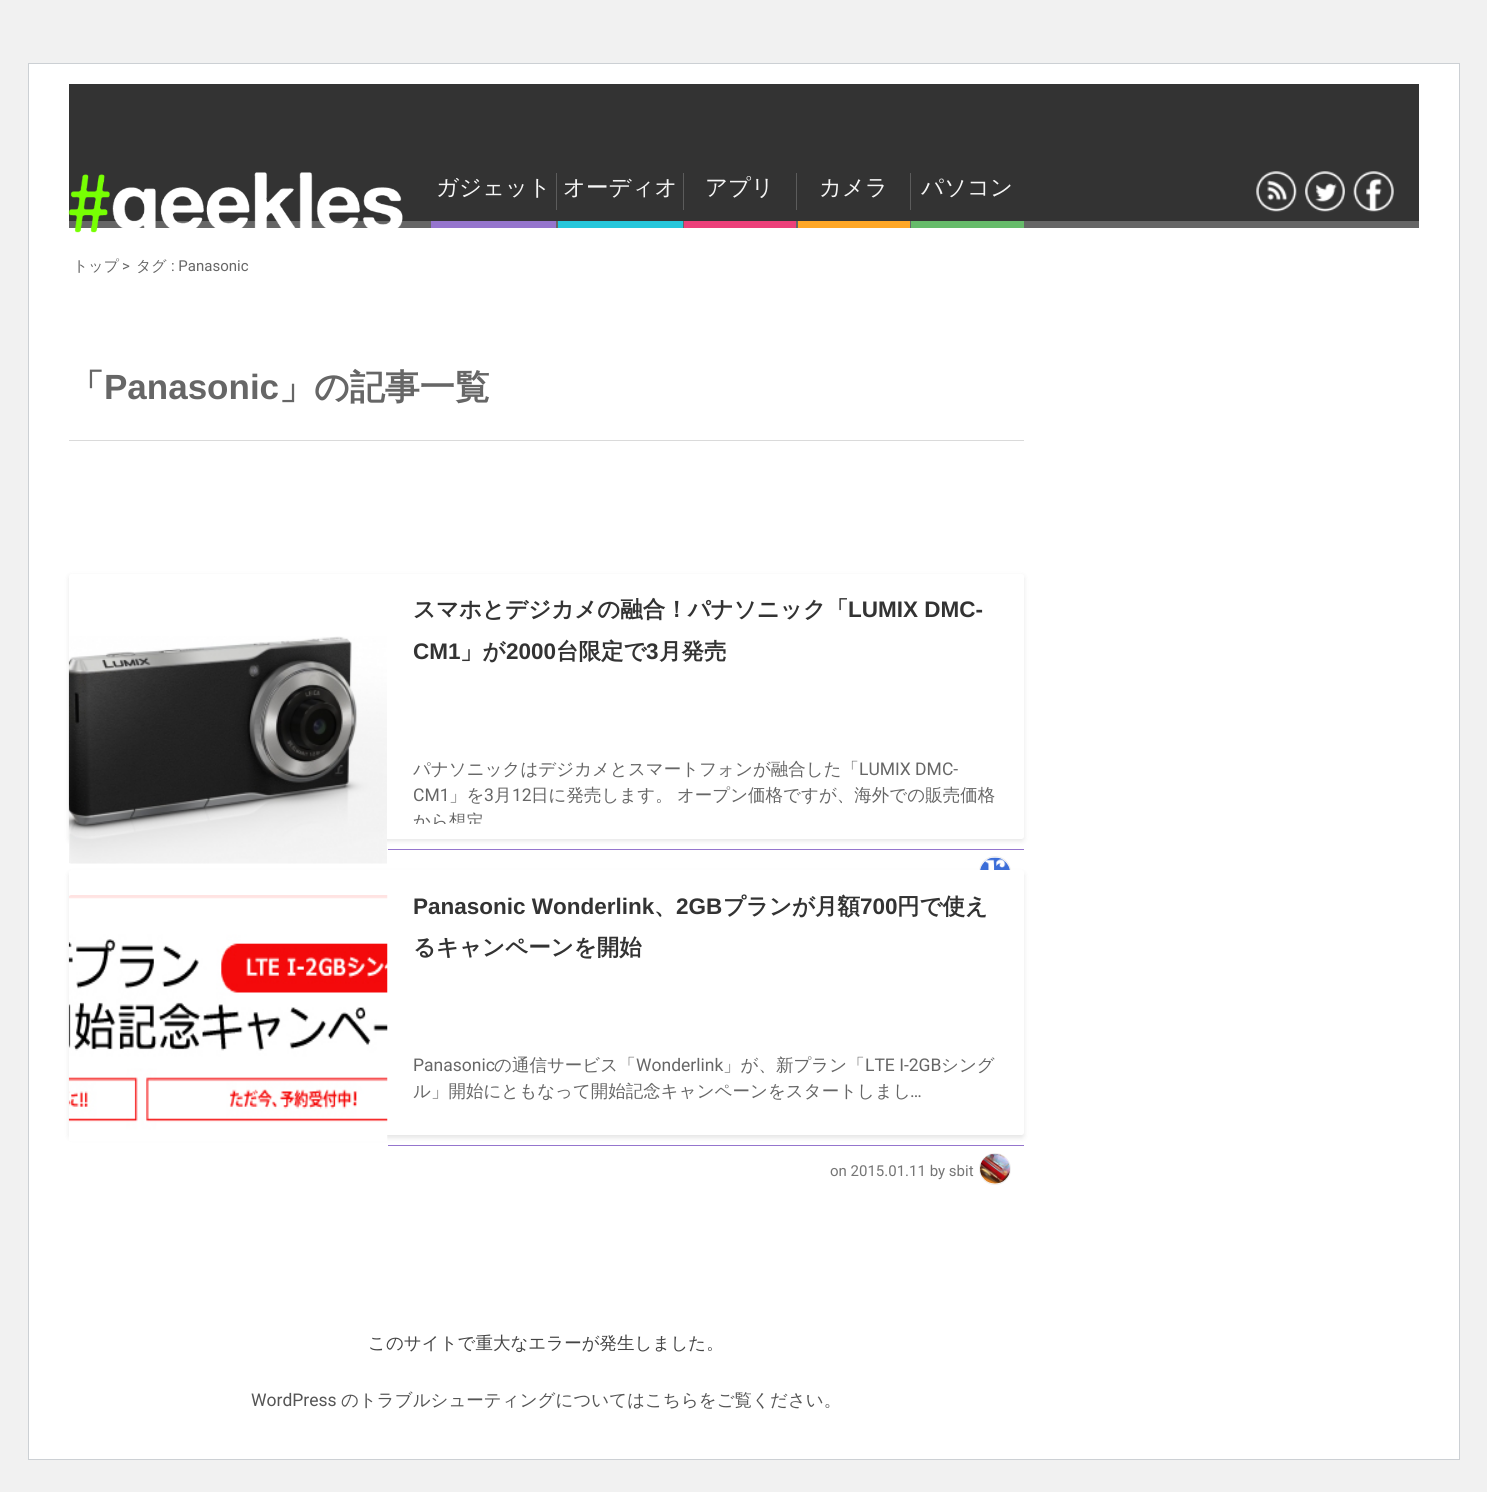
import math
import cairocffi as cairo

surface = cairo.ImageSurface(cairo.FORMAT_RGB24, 1487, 1492)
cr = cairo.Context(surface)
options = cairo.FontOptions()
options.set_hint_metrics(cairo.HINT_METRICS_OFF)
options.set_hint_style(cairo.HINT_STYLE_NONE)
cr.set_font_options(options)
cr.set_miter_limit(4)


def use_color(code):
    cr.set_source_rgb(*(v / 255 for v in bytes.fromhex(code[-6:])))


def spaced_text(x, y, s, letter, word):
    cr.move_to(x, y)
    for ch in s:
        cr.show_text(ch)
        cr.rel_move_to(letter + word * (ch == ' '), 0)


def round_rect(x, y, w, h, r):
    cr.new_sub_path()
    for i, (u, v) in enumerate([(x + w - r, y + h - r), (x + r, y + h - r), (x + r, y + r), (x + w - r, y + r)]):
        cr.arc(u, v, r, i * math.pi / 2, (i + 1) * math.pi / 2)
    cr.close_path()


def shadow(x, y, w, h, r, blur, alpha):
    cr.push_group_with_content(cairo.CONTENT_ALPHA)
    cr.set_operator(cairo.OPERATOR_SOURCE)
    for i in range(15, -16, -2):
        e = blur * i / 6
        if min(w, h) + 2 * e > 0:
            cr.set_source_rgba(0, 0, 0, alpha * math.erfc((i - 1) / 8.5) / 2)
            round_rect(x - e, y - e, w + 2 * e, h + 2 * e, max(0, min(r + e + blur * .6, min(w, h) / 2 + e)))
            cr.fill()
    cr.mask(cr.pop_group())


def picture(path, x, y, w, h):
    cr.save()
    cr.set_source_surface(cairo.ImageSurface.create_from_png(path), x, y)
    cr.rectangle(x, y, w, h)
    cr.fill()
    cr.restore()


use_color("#f1f1f1")
cr.paint()
use_color("#ffffff")
cr.rectangle(28.5, 63.5, 1431, 1396)
cr.fill_preserve()
use_color("#ccd0d4")
cr.set_line_width(1)
cr.stroke()
use_color("#333333")
cr.rectangle(69, 84, 1350, 137)
cr.fill()
use_color("#666666")
cr.rectangle(69, 221, 1350, 7)
cr.fill()
picture("img1.png", 68, 172, 335, 61)
use_color("#9575cd")
cr.rectangle(431, 221, 125, 7)
cr.fill()
cr.select_font_face("WenQuanYi Zen Hei Medium")
cr.set_font_size(22.5)
use_color("#f5f5f5")
cr.move_to(436, 195)
cr.show_text("ガジェット")
use_color("#26c6da")
cr.rectangle(558, 221, 125, 7)
cr.fill()
use_color("#5c5c5c")
cr.rectangle(556, 173, 1, 37)
cr.fill()
use_color("#f5f5f5")
cr.move_to(563, 195)
cr.show_text("オーディオ")
use_color("#ec407a")
cr.rectangle(684, 221, 112, 7)
cr.fill()
use_color("#5c5c5c")
cr.rectangle(683, 173, 1, 37)
cr.fill()
use_color("#f5f5f5")
cr.move_to(705, 195)
cr.show_text("アプリ")
use_color("#ffa726")
cr.rectangle(798, 221, 112, 7)
cr.fill()
use_color("#5c5c5c")
cr.rectangle(796, 173, 1, 37)
cr.fill()
use_color("#f5f5f5")
cr.move_to(819, 195)
cr.show_text("カメラ")
use_color("#66bb6a")
cr.rectangle(911, 221, 113, 7)
cr.fill()
use_color("#5c5c5c")
cr.rectangle(910, 173, 1, 37)
cr.fill()
use_color("#f5f5f5")
cr.move_to(921, 195)
cr.show_text("パソコン")
picture("img2.png", 1256, 171, 41, 41)
picture("img3.png", 1305, 171, 40, 41)
picture("img4.png", 1353, 171, 41, 41)
cr.set_font_size(15)
use_color("#666666")
cr.move_to(73, 271)
cr.show_text("トップ")
cr.select_font_face("Roboto")
cr.move_to(122, 271)
cr.show_text(">")
cr.select_font_face("WenQuanYi Zen Hei Medium")
cr.move_to(136, 271)
cr.show_text("タグ")
cr.select_font_face("Roboto")
cr.move_to(171, 271)
cr.show_text(": Panasonic")
use_color("#dadada")
cr.rectangle(69, 440, 955, 1)
cr.fill()
cr.select_font_face("WenQuanYi Zen Hei", cairo.FONT_SLANT_NORMAL, cairo.FONT_WEIGHT_BOLD)
cr.set_font_size(35)
use_color("#666666")
cr.move_to(69, 399)
cr.show_text("「")
cr.select_font_face("Liberation Sans", cairo.FONT_SLANT_NORMAL, cairo.FONT_WEIGHT_BOLD)
cr.move_to(104, 399)
cr.show_text("Panasonic")
cr.select_font_face("WenQuanYi Zen Hei", cairo.FONT_SLANT_NORMAL, cairo.FONT_WEIGHT_BOLD)
cr.move_to(279, 399)
cr.show_text("」の記事一覧")
use_color("#000000")
shadow(69, 576, 955, 265, 2.5, 2.5, 0.1)
use_color("#ffffff")
round_rect(69, 574, 955, 265, 2.5)
cr.fill()
picture("img5.png", 68, 636, 319, 228)
cr.set_font_size(22.5)
use_color("#333333")
cr.move_to(413, 617)
cr.show_text("スマホとデジカメの融合！パナソニック「")
cr.select_font_face("Liberation Sans", cairo.FONT_SLANT_NORMAL, cairo.FONT_WEIGHT_BOLD)
cr.move_to(848, 617)
cr.show_text("LUMIX DMC-")
cr.move_to(413, 659)
cr.show_text("CM1")
cr.select_font_face("WenQuanYi Zen Hei", cairo.FONT_SLANT_NORMAL, cairo.FONT_WEIGHT_BOLD)
cr.move_to(460, 659)
cr.show_text("」が")
cr.select_font_face("Liberation Sans", cairo.FONT_SLANT_NORMAL, cairo.FONT_WEIGHT_BOLD)
cr.move_to(506, 659)
cr.show_text("2000")
cr.select_font_face("WenQuanYi Zen Hei", cairo.FONT_SLANT_NORMAL, cairo.FONT_WEIGHT_BOLD)
cr.move_to(556, 659)
cr.show_text("台限定で")
cr.select_font_face("Liberation Sans", cairo.FONT_SLANT_NORMAL, cairo.FONT_WEIGHT_BOLD)
cr.move_to(646, 659)
cr.show_text("3")
cr.select_font_face("WenQuanYi Zen Hei", cairo.FONT_SLANT_NORMAL, cairo.FONT_WEIGHT_BOLD)
cr.move_to(659, 659)
cr.show_text("月発売")
cr.select_font_face("WenQuanYi Zen Hei Medium")
cr.set_font_size(17.5)
use_color("#666666")
cr.move_to(413, 775)
cr.show_text("パナソニックはデジカメとスマートフォンが融合した「")
cr.select_font_face("Roboto")
cr.move_to(859, 775)
cr.show_text("LUMIX DMC-")
cr.move_to(413, 801)
cr.show_text("CM1")
cr.select_font_face("WenQuanYi Zen Hei Medium")
cr.move_to(449, 801)
cr.show_text("」を")
cr.select_font_face("Roboto")
cr.move_to(484, 801)
cr.show_text("3")
cr.select_font_face("WenQuanYi Zen Hei Medium")
cr.move_to(494, 801)
cr.show_text("月")
cr.select_font_face("Roboto")
cr.move_to(512, 801)
cr.show_text("12")
cr.select_font_face("WenQuanYi Zen Hei Medium")
spaced_text(531, 801, "日に発売します。 オープン価格ですが、海外での販売価格", 0, -1)
cr.save()
cr.rectangle(388, 744, 636, 80)
cr.clip()
cr.move_to(413, 827)
cr.show_text("から想定")
cr.restore()
use_color("#9575cd")
cr.rectangle(388, 849, 636, 1)
cr.fill()
round_rect(979.5, 856.5, 31, 32, 15.5)
use_color("#eeeeee")
cr.stroke()
picture("img6.png", 980, 857, 30, 13)
use_color("#000000")
shadow(69, 873, 955, 265, 2.5, 2.5, 0.1)
use_color("#ffffff")
round_rect(69, 870, 955, 265, 2.5)
cr.fill()
picture("img7.png", 68, 895, 320, 246)
cr.select_font_face("Liberation Sans", cairo.FONT_SLANT_NORMAL, cairo.FONT_WEIGHT_BOLD)
cr.set_font_size(22.5)
use_color("#333333")
cr.move_to(413, 914)
cr.show_text("Panasonic Wonderlink")
cr.select_font_face("WenQuanYi Zen Hei", cairo.FONT_SLANT_NORMAL, cairo.FONT_WEIGHT_BOLD)
cr.move_to(654, 914)
cr.show_text("、")
cr.select_font_face("Liberation Sans", cairo.FONT_SLANT_NORMAL, cairo.FONT_WEIGHT_BOLD)
cr.move_to(676, 914)
cr.show_text("2GB")
cr.select_font_face("WenQuanYi Zen Hei", cairo.FONT_SLANT_NORMAL, cairo.FONT_WEIGHT_BOLD)
cr.move_to(723, 914)
cr.show_text("プランが月額")
cr.select_font_face("Liberation Sans", cairo.FONT_SLANT_NORMAL, cairo.FONT_WEIGHT_BOLD)
cr.move_to(860, 914)
cr.show_text("700")
cr.select_font_face("WenQuanYi Zen Hei", cairo.FONT_SLANT_NORMAL, cairo.FONT_WEIGHT_BOLD)
cr.move_to(897, 914)
cr.show_text("円で使え")
cr.move_to(413, 955)
cr.show_text("るキャンペーンを開始")
cr.select_font_face("Roboto")
cr.set_font_size(17.5)
use_color("#666666")
cr.move_to(413, 1071)
cr.show_text("Panasonic")
cr.select_font_face("WenQuanYi Zen Hei Medium")
cr.move_to(494, 1071)
cr.show_text("の通信サービス「")
cr.select_font_face("Roboto")
cr.move_to(636, 1071)
cr.show_text("Wonderlink")
cr.select_font_face("WenQuanYi Zen Hei Medium")
cr.move_to(723, 1071)
cr.show_text("」が、新プラン「")
cr.select_font_face("Roboto")
cr.move_to(865, 1071)
cr.show_text("LTE I-2GB")
cr.select_font_face("WenQuanYi Zen Hei Medium")
cr.move_to(941, 1071)
cr.show_text("シング")
cr.move_to(413, 1097)
cr.show_text("ル」開始にともなって開始記念キャンペーンをスタートしまし")
cr.select_font_face("Roboto")
cr.move_to(910, 1097)
cr.show_text("…")
use_color("#9575cd")
cr.rectangle(388, 1145, 636, 1)
cr.fill()
cr.set_font_size(15)
use_color("#757575")
cr.move_to(830, 1176)
cr.show_text("on 2015.01.11 by sbit")
cr.new_path()
cr.arc(995, 1169, 15.5, 0, 2 * math.pi)
use_color("#eeeeee")
cr.stroke()
picture("img8.png", 980, 1153, 30, 31)
cr.select_font_face("WenQuanYi Zen Hei Medium")
cr.set_font_size(17.5)
use_color("#444444")
cr.move_to(368, 1349)
cr.show_text("このサイトで重大なエラーが発生しました。")
cr.select_font_face("Roboto")
use_color("#555555")
cr.move_to(251, 1406)
cr.show_text("WordPress")
cr.select_font_face("WenQuanYi Zen Hei Medium")
cr.move_to(341, 1406)
cr.show_text("のトラブルシューティングについてはこちらをご覧ください。")
surface.write_to_png("result.png")
